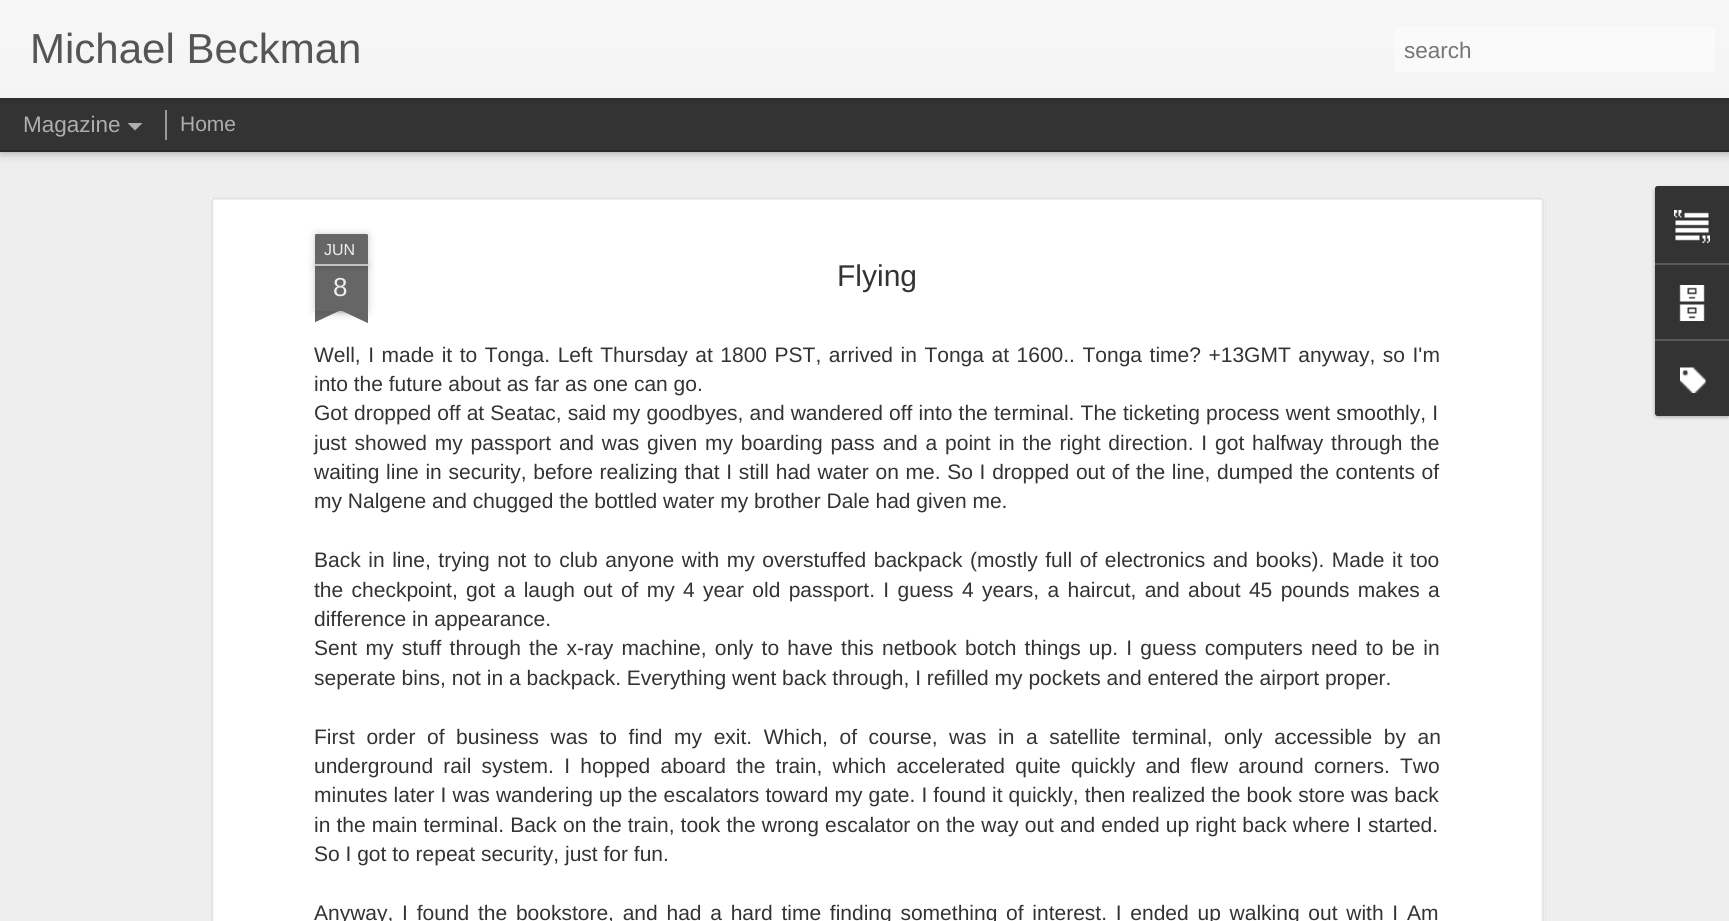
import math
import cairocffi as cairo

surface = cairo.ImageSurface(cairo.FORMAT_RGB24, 1729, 921)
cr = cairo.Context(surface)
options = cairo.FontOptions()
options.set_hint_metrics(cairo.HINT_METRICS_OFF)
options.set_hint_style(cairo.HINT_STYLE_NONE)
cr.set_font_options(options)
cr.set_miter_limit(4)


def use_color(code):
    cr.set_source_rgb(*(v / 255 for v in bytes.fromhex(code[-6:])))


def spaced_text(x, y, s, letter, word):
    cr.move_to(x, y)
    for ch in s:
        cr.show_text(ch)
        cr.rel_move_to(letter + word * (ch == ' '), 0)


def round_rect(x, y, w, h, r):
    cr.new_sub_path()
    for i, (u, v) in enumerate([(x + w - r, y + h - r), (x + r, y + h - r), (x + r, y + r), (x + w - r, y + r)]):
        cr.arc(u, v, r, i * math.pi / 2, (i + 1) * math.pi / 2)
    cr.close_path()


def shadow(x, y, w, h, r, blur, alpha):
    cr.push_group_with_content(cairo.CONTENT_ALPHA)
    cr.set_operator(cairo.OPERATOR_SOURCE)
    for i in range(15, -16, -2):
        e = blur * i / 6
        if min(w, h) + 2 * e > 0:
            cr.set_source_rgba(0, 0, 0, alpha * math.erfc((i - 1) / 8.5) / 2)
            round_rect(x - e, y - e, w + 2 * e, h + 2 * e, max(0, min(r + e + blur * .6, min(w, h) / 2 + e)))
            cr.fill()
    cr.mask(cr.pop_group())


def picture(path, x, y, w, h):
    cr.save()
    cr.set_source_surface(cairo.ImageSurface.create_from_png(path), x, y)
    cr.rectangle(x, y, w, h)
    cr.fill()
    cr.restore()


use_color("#333333")
cr.paint()
use_color("#eeeeee")
cr.rectangle(0, 152, 1729, 769)
cr.fill()
use_color("#000000")
shadow(0, 98, 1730, 52, 0, 6, 0.5)
use_color("#333333")
cr.rectangle(0, 98, 1729, 52)
cr.fill()
use_color("#999999")
cr.rectangle(165, 110, 2, 30)
cr.fill()
use_color("#000000")
shadow(0, 0, 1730, 98, 0, 4, 0.3)
gradient = cairo.LinearGradient(0, 0, 0, 98)
gradient.add_color_stop_rgba(0, 0.969, 0.969, 0.969, 1)
gradient.add_color_stop_rgba(1, 0.957, 0.957, 0.957, 1)
cr.set_source(gradient)
cr.rectangle(0, 0, 1729, 98)
cr.fill()
cr.select_font_face("Liberation Sans")
cr.set_font_size(42)
use_color("#555555")
cr.move_to(30, 63)
cr.show_text("Michael Beckman")
use_color("#fafafa")
round_rect(1394, 27, 321, 45, 5)
cr.fill()
cr.set_font_size(22.5)
use_color("#757575")
cr.move_to(1404, 58)
cr.show_text("search")
use_color("#adadad")
cr.move_to(23, 132)
cr.show_text("Magazine")
cr.new_path()
cr.move_to(127.5, 123)
cr.line_to(142.5, 123)
cr.line_to(135, 130.5)
cr.close_path()
cr.fill()
cr.set_font_size(21)
cr.move_to(180, 131)
cr.show_text("Home")
use_color("#ffffff")
cr.rectangle(210, 197, 1335, 724)
cr.fill()
picture("img1.png", 210, 197, 1336, 724)
use_color("#000000")
shadow(315, 266, 53, 45, 0, 4, 0.2)
use_color("#666666")
cr.rectangle(315, 266, 53, 45)
cr.fill()
use_color("#000000")
shadow(315, 234, 53, 32, 1.5, 4, 0.2)
use_color("#666666")
cr.new_path()
cr.move_to(316.5, 234)
cr.line_to(366.5, 234)
cr.curve_to(367.5, 234, 368, 234.5, 368, 235.5)
cr.line_to(368, 266)
cr.line_to(315, 266)
cr.line_to(315, 235.5)
cr.curve_to(315, 234.5, 315.5, 234, 316.5, 234)
cr.close_path()
cr.fill()
use_color("#c2c2c2")
cr.rectangle(315, 264, 53, 2)
cr.fill()
cr.set_font_size(16)
use_color("#eeeeee")
cr.move_to(324, 255)
cr.show_text("JUN")
cr.set_font_size(26)
cr.move_to(333, 296)
cr.show_text("8")
cr.save()
cr.rectangle(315, 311, 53, 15)
cr.clip()
use_color("#000000")
shadow(302, 296, 75, 15, 0, 4, 0.2)
cr.restore()
cr.save()
cr.rectangle(315, 311, 53, 15)
cr.clip()
use_color("#666666")
cr.new_path()
cr.move_to(301, 312)
cr.line_to(369, 280)
cr.line_to(375, 294)
cr.line_to(307, 326)
cr.close_path()
cr.fill()
cr.restore()
cr.save()
cr.rectangle(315, 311, 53, 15)
cr.clip()
use_color("#000000")
shadow(306, 296, 75, 15, 0, 4, 0.2)
cr.restore()
cr.save()
cr.rectangle(315, 311, 53, 15)
cr.clip()
use_color("#666666")
cr.new_path()
cr.move_to(312, 280)
cr.line_to(380, 312)
cr.line_to(374, 326)
cr.line_to(306, 294)
cr.close_path()
cr.fill()
cr.restore()
cr.set_font_size(30)
use_color("#333333")
cr.move_to(837, 286)
cr.show_text("Flying")
cr.set_font_size(21)
spaced_text(314, 362, "Well, I made it to Tonga. Left Thursday at 1800 PST, arrived in Tonga at 1600.. Tonga time? +13GMT anyway, so I'm", 0, 1.7)
cr.move_to(314, 391)
cr.show_text("into the future about as far as one can go.")
spaced_text(314, 420, "Got dropped off at Seatac, said my goodbyes, and wandered off into the terminal. The ticketing process went smoothly, I", 0, 0.3)
spaced_text(314, 450, "just showed my passport and was given my boarding pass and a point in the right direction. I got halfway through the", 0, 2)
spaced_text(314, 479, "waiting line in security, before realizing that I still had water on me. So I dropped out of the line, dumped the contents of", 0, 0.85)
cr.move_to(314, 508)
cr.show_text("my Nalgene and chugged the bottled water my brother Dale had given me.")
spaced_text(314, 567, "Back in line, trying not to club anyone with my overstuffed backpack (mostly full of electronics and books). Made it too", 0, 1.75)
spaced_text(314, 597, "the checkpoint, got a laugh out of my 4 year old passport. I guess 4 years, a haircut, and about 45 pounds makes a", 0, 2.5)
cr.move_to(314, 626)
cr.show_text("difference in appearance.")
spaced_text(314, 655, "Sent my stuff through the x-ray machine, only to have this netbook botch things up. I guess computers need to be in", 0, 2.4)
cr.move_to(314, 685)
cr.show_text("seperate bins, not in a backpack. Everything went back through, I refilled my pockets and entered the airport proper.")
spaced_text(314, 744, "First order of business was to find my exit. Which, of course, was in a satellite terminal, only accessible by an", 0, 5.75)
spaced_text(314, 773, "underground rail system. I hopped aboard the train, which accelerated quite quickly and flew around corners. Two", 0, 4.4)
spaced_text(314, 802, "minutes later I was wandering up the escalators toward my gate. I found it quickly, then realized the book store was back", 0, 0.25)
spaced_text(314, 832, "in the main terminal. Back on the train, took the wrong escalator on the way out and ended up right back where I started.", 0, 0.3)
cr.move_to(314, 861)
cr.show_text("So I got to repeat security, just for fun.")
spaced_text(314, 920, "Anyway, I found the bookstore, and had a hard time finding something of interest. I ended up walking out with I Am", 0, 2.9)
use_color("#000000")
shadow(1655, 188, 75, 229, 3, 2, 0.3)
use_color("#333333")
cr.new_path()
cr.move_to(1658, 186)
cr.line_to(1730, 186)
cr.line_to(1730, 416)
cr.line_to(1658, 416)
cr.curve_to(1656.5, 416, 1655, 414.5, 1655, 413)
cr.line_to(1655, 189)
cr.curve_to(1655, 187.5, 1656.5, 186, 1658, 186)
cr.close_path()
cr.fill()
cr.new_path()
cr.move_to(1658, 186)
cr.line_to(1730, 186)
cr.line_to(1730, 263)
cr.line_to(1655, 263)
cr.line_to(1655, 189)
cr.curve_to(1655, 187.5, 1656.5, 186, 1658, 186)
cr.close_path()
cr.fill()
picture("img2.png", 1674, 210, 36, 33)
use_color("#585858")
cr.rectangle(1655, 263, 74, 2)
cr.fill()
picture("img3.png", 1679, 285, 26, 36)
use_color("#333333")
cr.new_path()
cr.move_to(1655, 339)
cr.line_to(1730, 339)
cr.line_to(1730, 416)
cr.line_to(1658, 416)
cr.curve_to(1656.5, 416, 1655, 414.5, 1655, 413)
cr.close_path()
cr.fill()
use_color("#585858")
cr.rectangle(1655, 339, 74, 2)
cr.fill()
picture("img4.png", 1680, 367, 26, 26)
surface.write_to_png("result.png")
